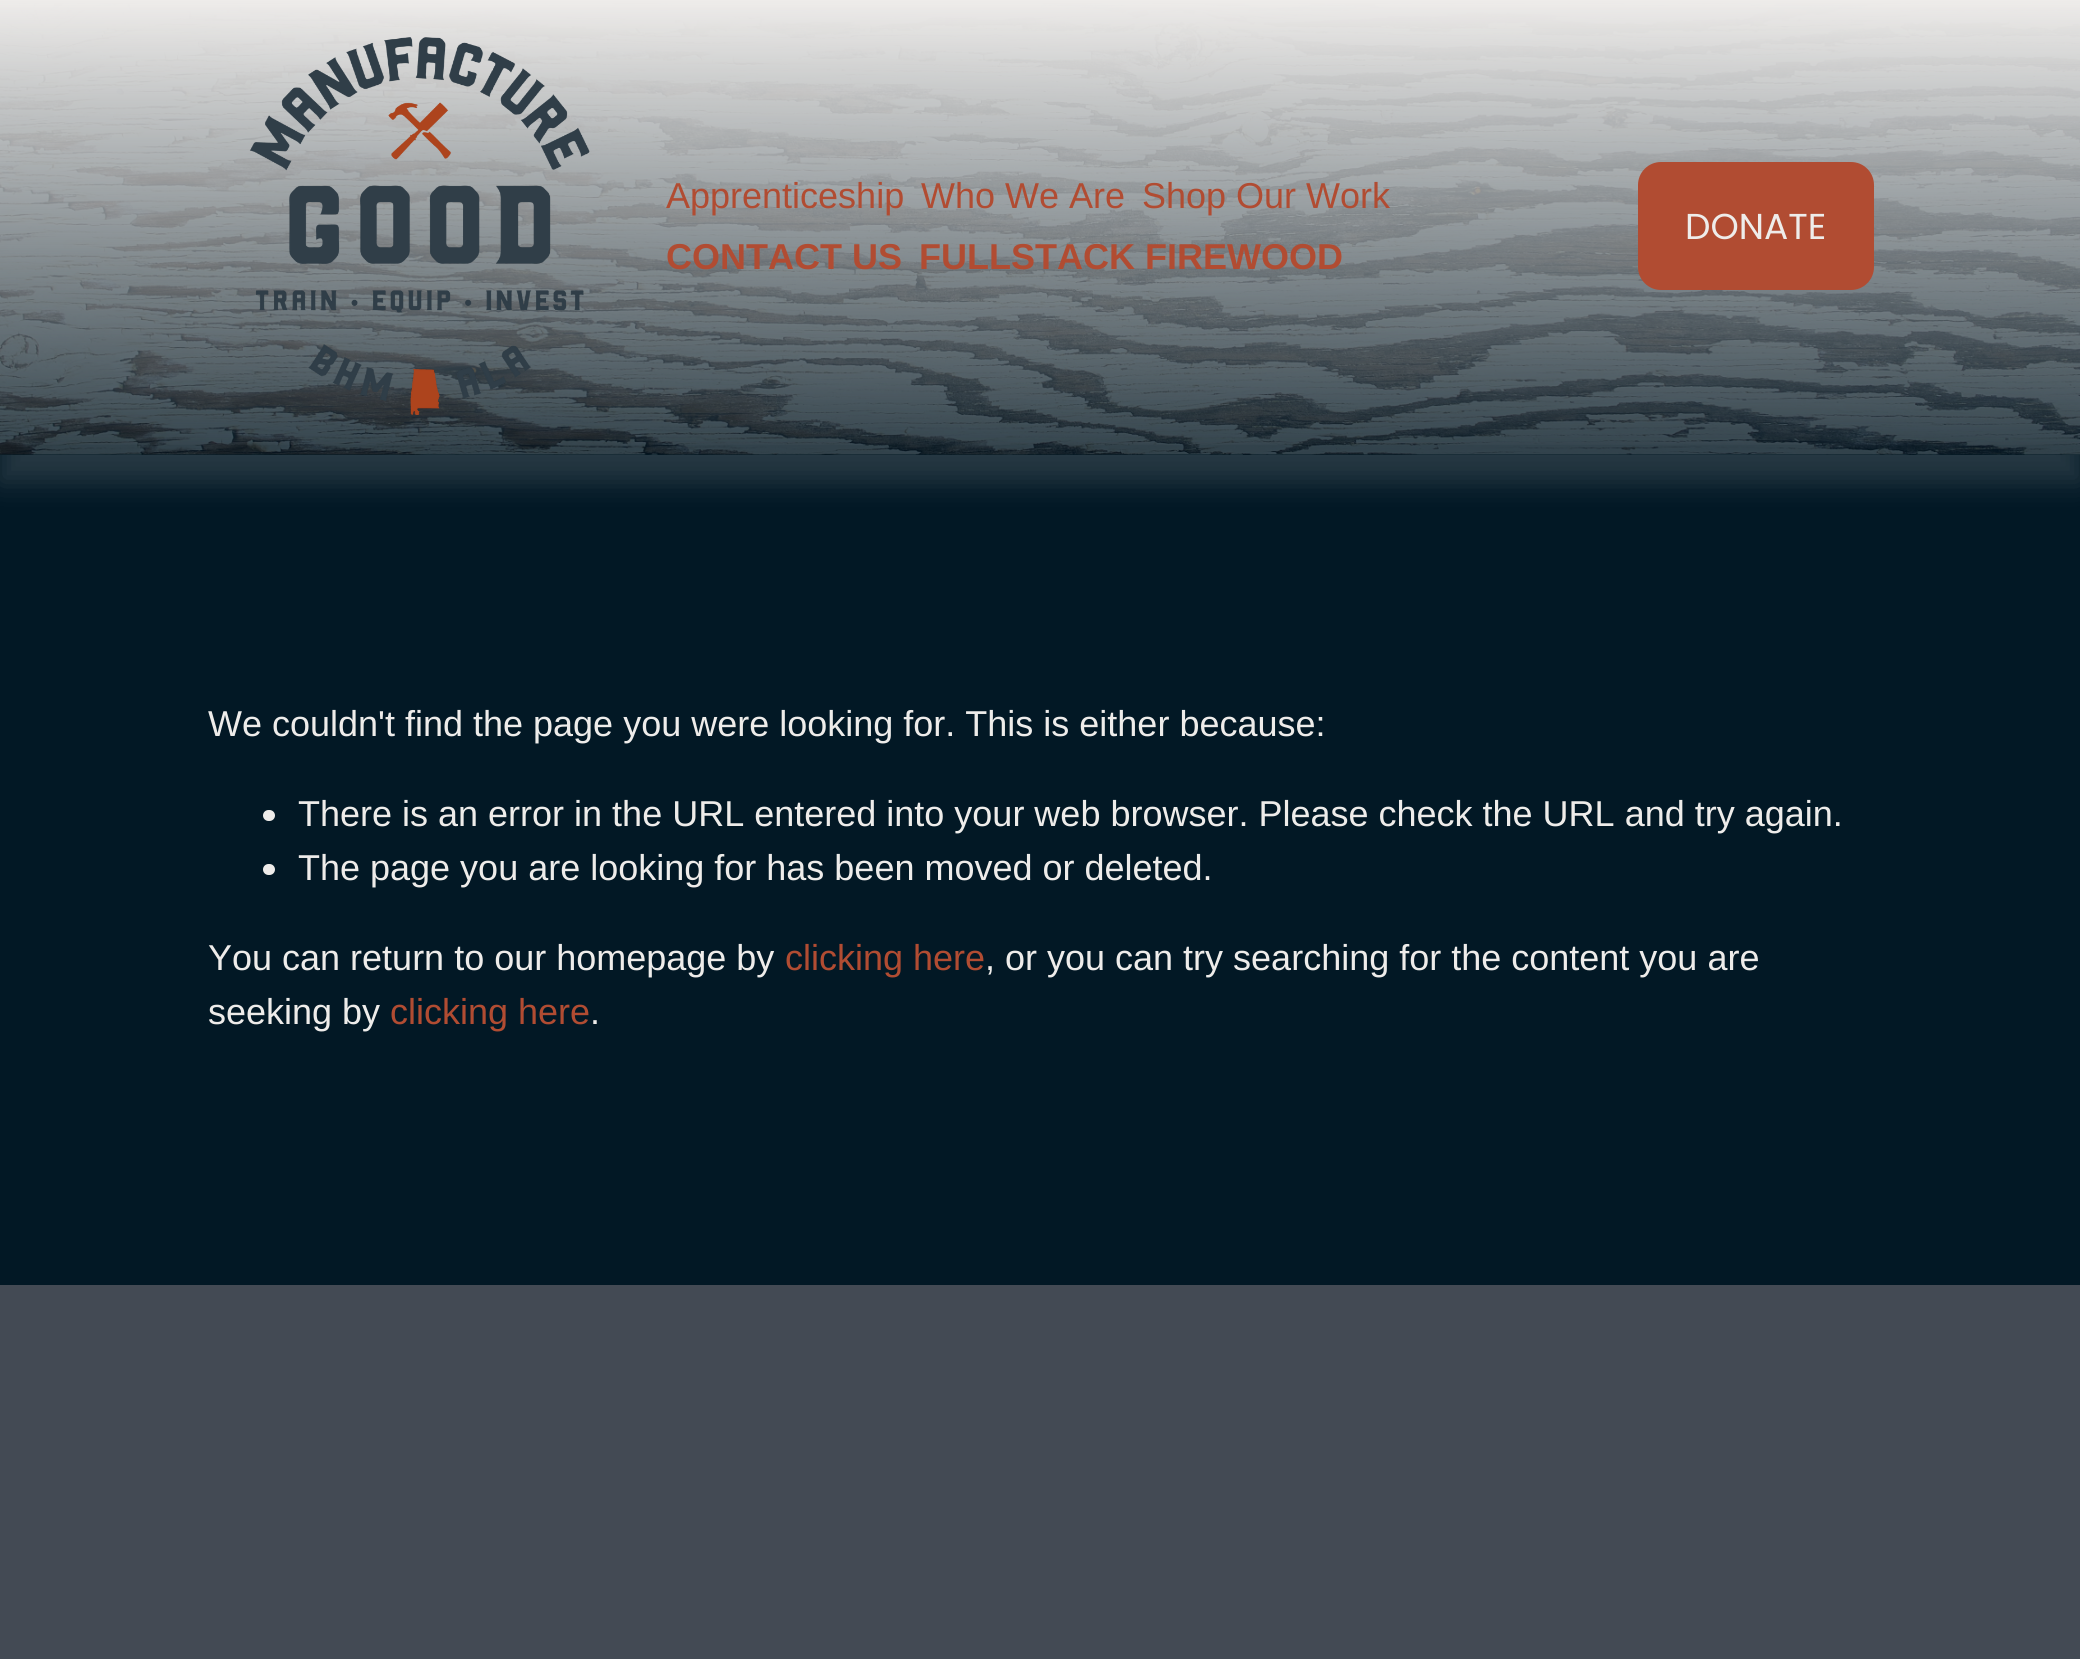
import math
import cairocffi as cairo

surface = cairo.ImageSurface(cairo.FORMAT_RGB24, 2080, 1659)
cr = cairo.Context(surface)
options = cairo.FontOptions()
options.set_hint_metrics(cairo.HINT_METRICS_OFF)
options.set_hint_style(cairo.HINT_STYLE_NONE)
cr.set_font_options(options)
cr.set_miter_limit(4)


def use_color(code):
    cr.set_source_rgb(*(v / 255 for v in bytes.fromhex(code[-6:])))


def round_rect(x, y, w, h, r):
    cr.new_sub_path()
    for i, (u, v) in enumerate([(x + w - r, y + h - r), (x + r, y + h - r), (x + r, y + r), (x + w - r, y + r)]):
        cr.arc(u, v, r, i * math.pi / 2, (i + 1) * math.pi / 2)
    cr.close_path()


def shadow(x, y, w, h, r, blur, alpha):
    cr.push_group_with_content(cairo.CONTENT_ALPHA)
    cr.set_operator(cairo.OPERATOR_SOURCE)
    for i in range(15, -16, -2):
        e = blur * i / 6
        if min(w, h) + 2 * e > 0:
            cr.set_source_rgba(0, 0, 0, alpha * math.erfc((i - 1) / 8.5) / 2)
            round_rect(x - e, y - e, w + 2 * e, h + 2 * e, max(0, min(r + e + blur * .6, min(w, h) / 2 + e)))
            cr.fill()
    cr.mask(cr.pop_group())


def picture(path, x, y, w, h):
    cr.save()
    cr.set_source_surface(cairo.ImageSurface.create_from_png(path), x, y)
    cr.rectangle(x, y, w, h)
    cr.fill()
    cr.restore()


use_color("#021825")
cr.paint()
picture("img1.png", 0, 3, 2080, 452)
cr.save()
cr.set_fill_rule(cairo.FILL_RULE_EVEN_ODD)
cr.new_path()
cr.move_to(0, 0)
cr.line_to(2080, 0)
cr.line_to(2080, 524)
cr.line_to(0, 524)
cr.close_path()
cr.move_to(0, 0)
cr.line_to(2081, 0)
cr.line_to(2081, 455)
cr.line_to(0, 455)
cr.close_path()
cr.clip()
use_color("#eeecea")
shadow(0, 27, 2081, 455, 0, 13.5, 0.15)
cr.restore()
gradient = cairo.LinearGradient(1041, 0, 1041, 455)
gradient.add_color_stop_rgba(0, 0.933, 0.925, 0.918, 1)
gradient.add_color_stop_rgba(1, 0.933, 0.925, 0.918, 0)
cr.set_source(gradient)
cr.rectangle(0, 0, 2080, 445)
cr.fill()
picture("img2.png", 249, 37, 341, 378)
cr.select_font_face("Liberation Sans")
cr.set_font_size(36)
use_color("#b14c32")
cr.move_to(666, 208)
cr.show_text("Apprenticeship")
cr.move_to(921, 208)
cr.show_text("Who We Are")
cr.move_to(1142, 208)
cr.show_text("Shop Our Work")
cr.select_font_face("Liberation Sans", cairo.FONT_SLANT_NORMAL, cairo.FONT_WEIGHT_BOLD)
cr.move_to(666, 269)
cr.show_text("CONTACT US")
cr.move_to(919, 269)
cr.show_text("FULLSTACK FIREWOOD")
round_rect(1638, 162, 236, 128, 23)
cr.fill()
cr.select_font_face("Poppins")
use_color("#eeecea")
cr.move_to(1685, 239)
cr.show_text("DONATE")
cr.select_font_face("Liberation Sans")
cr.move_to(208, 736)
cr.show_text("We couldn't find the page you were looking for. This is either because:")
round_rect(263, 810, 12, 11, 5.5)
cr.fill()
cr.move_to(298, 826)
cr.show_text("There is an error in the URL entered into your web browser. Please check the URL and try again.")
round_rect(263, 864, 12, 11, 5.5)
cr.fill()
cr.move_to(298, 880)
cr.show_text("The page you are looking for has been moved or deleted.")
cr.move_to(208, 970)
cr.show_text("You can return to our homepage by")
use_color("#b14c32")
cr.move_to(785, 970)
cr.show_text("clicking here")
use_color("#eeecea")
cr.move_to(985, 970)
cr.show_text(", or you can try searching for the content you are")
cr.move_to(208, 1024)
cr.show_text("seeking by")
use_color("#b14c32")
cr.move_to(390, 1024)
cr.show_text("clicking here")
use_color("#eeecea")
cr.move_to(590, 1024)
cr.show_text(".")
use_color("#434a54")
cr.rectangle(0, 1285, 2080, 374)
cr.fill()
surface.write_to_png("result.png")
